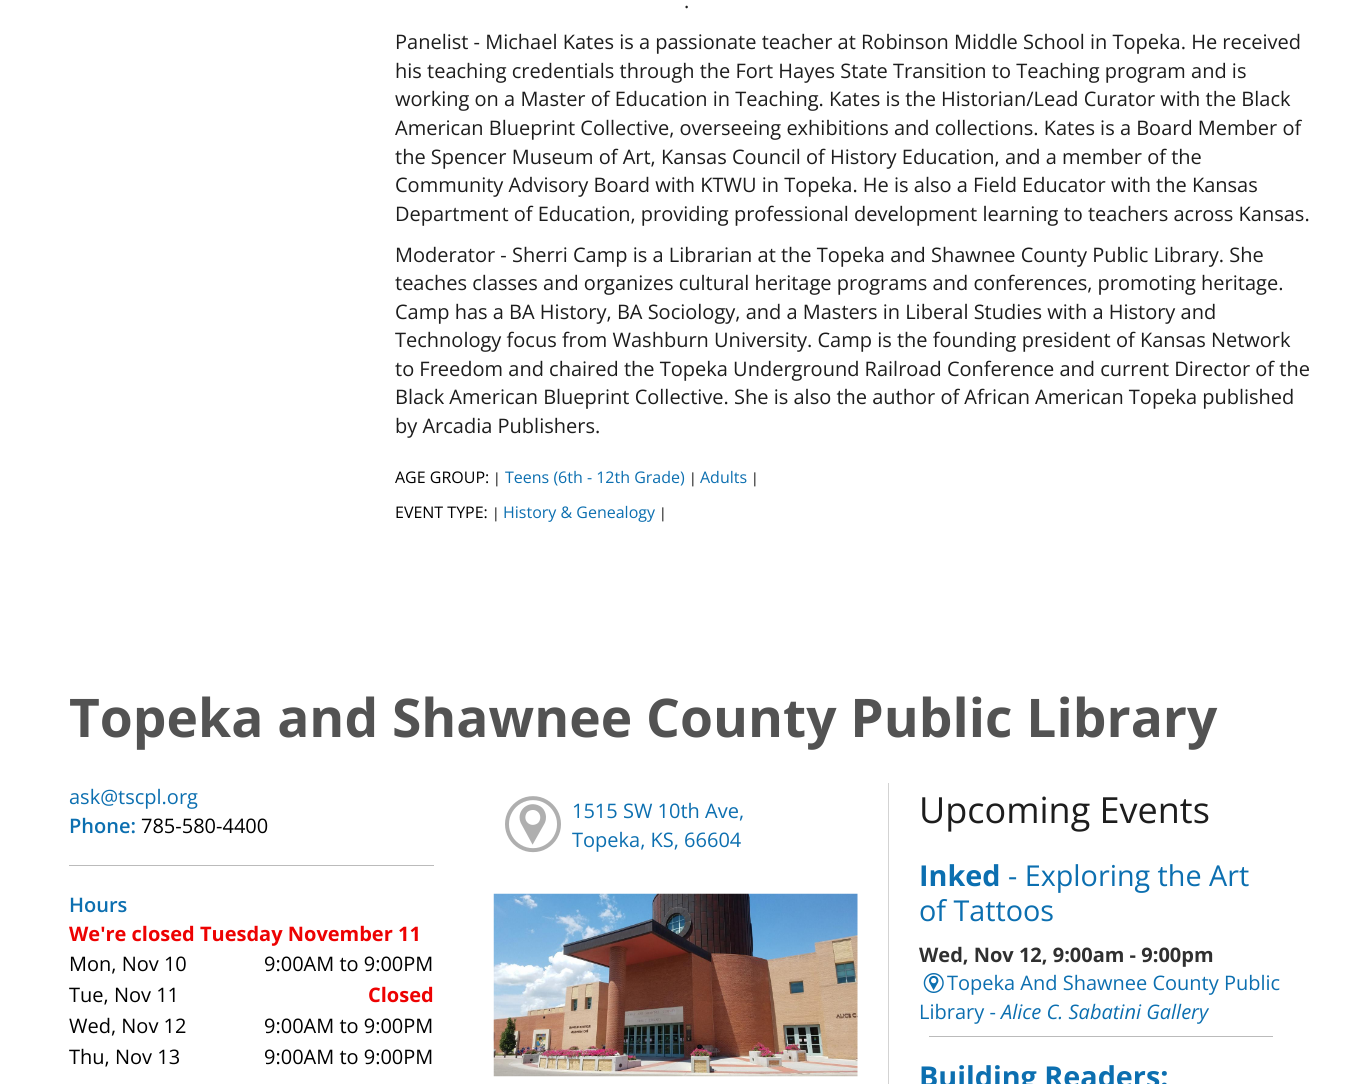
import math
import cairocffi as cairo

surface = cairo.ImageSurface(cairo.FORMAT_RGB24, 1351, 1084)
cr = cairo.Context(surface)
options = cairo.FontOptions()
options.set_hint_metrics(cairo.HINT_METRICS_OFF)
options.set_hint_style(cairo.HINT_STYLE_NONE)
cr.set_font_options(options)
cr.set_miter_limit(4)


def use_color(code):
    cr.set_source_rgb(*(v / 255 for v in bytes.fromhex(code[-6:])))


def picture(path, x, y, w, h):
    cr.save()
    cr.set_source_surface(cairo.ImageSurface.create_from_png(path), x, y)
    cr.rectangle(x, y, w, h)
    cr.fill()
    cr.restore()


use_color("#ffffff")
cr.paint()
cr.select_font_face("Open Sans")
cr.set_font_size(20)
use_color("#1d1d1d")
cr.move_to(684, 8)
cr.show_text(".")
cr.move_to(395, 49)
cr.show_text("Panelist - Michael Kates is a passionate teacher at Robinson Middle School in Topeka. He received")
cr.move_to(395, 78)
cr.show_text("his teaching credentials through the Fort Hayes State Transition to Teaching program and is")
cr.move_to(395, 106)
cr.show_text("working on a Master of Education in Teaching. Kates is the Historian/Lead Curator with the Black")
cr.move_to(395, 135)
cr.show_text("American Blueprint Collective, overseeing exhibitions and collections. Kates is a Board Member of")
cr.move_to(395, 164)
cr.show_text("the Spencer Museum of Art, Kansas Council of History Education, and a member of the")
cr.move_to(395, 192)
cr.show_text("Community Advisory Board with KTWU in Topeka. He is also a Field Educator with the Kansas")
cr.move_to(395, 221)
cr.show_text("Department of Education, providing professional development learning to teachers across Kansas.")
cr.move_to(395, 262)
cr.show_text("Moderator - Sherri Camp is a Librarian at the Topeka and Shawnee County Public Library. She")
cr.move_to(395, 290)
cr.show_text("teaches classes and organizes cultural heritage programs and conferences, promoting heritage.")
cr.move_to(395, 319)
cr.show_text("Camp has a BA History, BA Sociology, and a Masters in Liberal Studies with a History and")
cr.move_to(395, 347)
cr.show_text("Technology focus from Washburn University. Camp is the founding president of Kansas Network")
cr.move_to(395, 376)
cr.show_text("to Freedom and chaired the Topeka Underground Railroad Conference and current Director of the")
cr.move_to(395, 404)
cr.show_text("Black American Blueprint Collective. She is also the author of African American Topeka published")
cr.move_to(395, 433)
cr.show_text("by Arcadia Publishers.")
cr.set_font_size(16)
use_color("#000000")
cr.move_to(395, 483)
cr.show_text("AGE GROUP:")
cr.set_font_size(14)
cr.move_to(493, 483)
cr.show_text("|")
cr.set_font_size(16)
use_color("#0c6fb0")
cr.move_to(505, 483)
cr.show_text("Teens (6th - 12th Grade)")
cr.set_font_size(14)
use_color("#000000")
cr.move_to(689, 483)
cr.show_text("|")
cr.set_font_size(16)
use_color("#0c6fb0")
cr.move_to(700, 483)
cr.show_text("Adults")
cr.set_font_size(14)
use_color("#000000")
cr.move_to(751, 483)
cr.show_text("|")
cr.set_font_size(16)
cr.move_to(395, 518)
cr.show_text("EVENT TYPE:")
cr.set_font_size(14)
cr.move_to(492, 518)
cr.show_text("|")
cr.set_font_size(16)
use_color("#0c6fb0")
cr.move_to(503, 518)
cr.show_text("History & Genealogy")
cr.set_font_size(14)
use_color("#000000")
cr.move_to(659, 518)
cr.show_text("|")
cr.select_font_face("Open Sans", cairo.FONT_SLANT_NORMAL, cairo.FONT_WEIGHT_BOLD)
cr.set_font_size(53.3)
use_color("#535353")
cr.move_to(69, 737)
cr.show_text("Topeka and Shawnee County Public Library")
cr.select_font_face("Open Sans")
cr.set_font_size(20)
use_color("#0c6fb0")
cr.move_to(69, 804)
cr.show_text("ask@tscpl.org")
cr.select_font_face("Open Sans SemiBold")
cr.move_to(69, 833)
cr.show_text("Phone:")
cr.select_font_face("Open Sans")
use_color("#000000")
cr.move_to(141, 833)
cr.show_text("785-580-4400")
use_color("#bbbbbb")
cr.rectangle(69, 865, 365, 1)
cr.fill()
cr.select_font_face("Open Sans SemiBold")
use_color("#0c6fb0")
cr.move_to(69, 912)
cr.show_text("Hours")
cr.select_font_face("Open Sans", cairo.FONT_SLANT_NORMAL, cairo.FONT_WEIGHT_BOLD)
use_color("#ed0202")
cr.move_to(69, 941)
cr.show_text("We're closed Tuesday November 11")
cr.select_font_face("Open Sans")
use_color("#000000")
cr.move_to(69, 971)
cr.show_text("Mon, Nov 10")
cr.move_to(264, 971)
cr.show_text("9:00AM to 9:00PM")
cr.move_to(69, 1002)
cr.show_text("Tue, Nov 11")
cr.select_font_face("Open Sans", cairo.FONT_SLANT_NORMAL, cairo.FONT_WEIGHT_BOLD)
use_color("#ed0202")
cr.move_to(368, 1002)
cr.show_text("Closed")
cr.select_font_face("Open Sans")
use_color("#000000")
cr.move_to(69, 1033)
cr.show_text("Wed, Nov 12")
cr.move_to(264, 1033)
cr.show_text("9:00AM to 9:00PM")
cr.move_to(69, 1064)
cr.show_text("Thu, Nov 13")
cr.move_to(264, 1064)
cr.show_text("9:00AM to 9:00PM")
picture("img1.png", 505, 796, 56, 57)
use_color("#0c6fb0")
cr.move_to(572, 818)
cr.show_text("1515 SW 10th Ave,")
cr.move_to(572, 847)
cr.show_text("Topeka, KS, 66604")
picture("img2.png", 493, 893, 365, 184)
use_color("#d3d3d3")
cr.rectangle(888, 783, 1, 301)
cr.fill()
cr.set_font_size(36)
use_color("#1d1d1d")
cr.move_to(919, 823)
cr.show_text("Upcoming Events")
cr.select_font_face("Open Sans", cairo.FONT_SLANT_NORMAL, cairo.FONT_WEIGHT_BOLD)
cr.set_font_size(28.75)
use_color("#0c6fb0")
cr.move_to(919, 886)
cr.show_text("Inked")
cr.select_font_face("Open Sans")
cr.move_to(1008, 886)
cr.show_text("- Exploring the Art")
cr.move_to(919, 921)
cr.show_text("of Tattoos")
cr.select_font_face("Open Sans", cairo.FONT_SLANT_NORMAL, cairo.FONT_WEIGHT_BOLD)
cr.set_font_size(20)
use_color("#303030")
cr.move_to(919, 962)
cr.show_text("Wed, Nov 12, 9:00am - 9:00pm")
picture("img3.png", 923, 973, 21, 20)
cr.select_font_face("Open Sans")
use_color("#0c6fb0")
cr.move_to(947, 990)
cr.show_text("Topeka And Shawnee County Public")
cr.move_to(919, 1019)
cr.show_text("Library -")
cr.select_font_face("Open Sans", cairo.FONT_SLANT_ITALIC)
cr.move_to(1001, 1019)
cr.show_text("Alice C. Sabatini Gallery")
use_color("#bbbbbb")
cr.rectangle(929, 1036, 344, 1)
cr.fill()
cr.select_font_face("Open Sans", cairo.FONT_SLANT_NORMAL, cairo.FONT_WEIGHT_BOLD)
cr.set_font_size(28.75)
use_color("#0c6fb0")
cr.move_to(919, 1087)
cr.show_text("Building Readers:")
surface.write_to_png("result.png")
